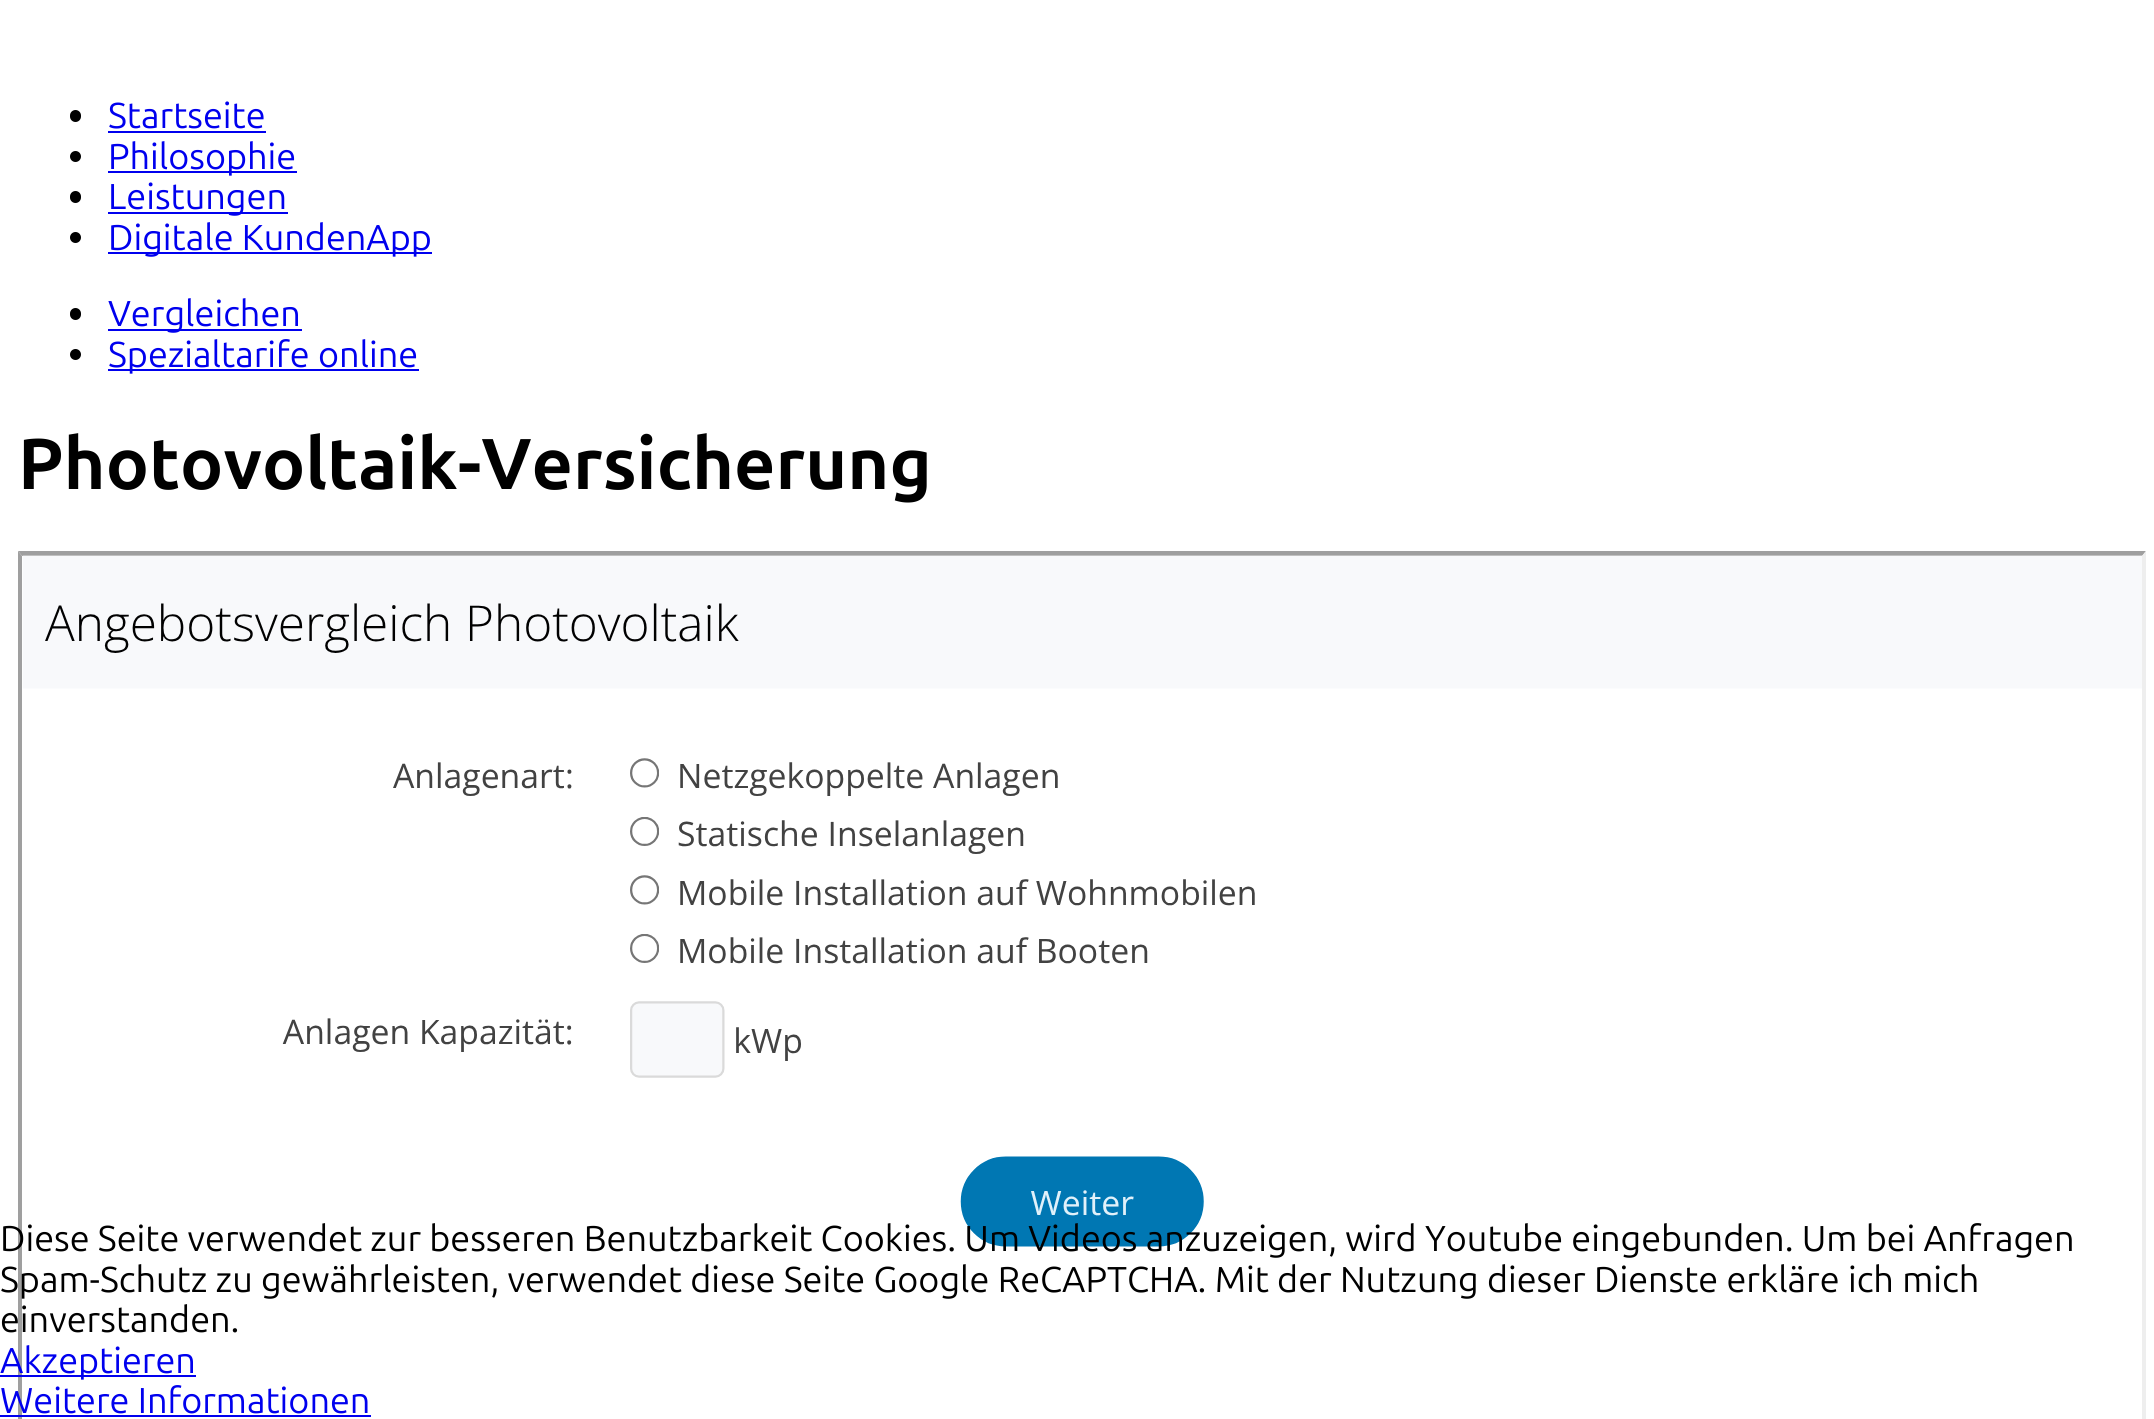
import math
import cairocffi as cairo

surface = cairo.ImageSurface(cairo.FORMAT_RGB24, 2154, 1419)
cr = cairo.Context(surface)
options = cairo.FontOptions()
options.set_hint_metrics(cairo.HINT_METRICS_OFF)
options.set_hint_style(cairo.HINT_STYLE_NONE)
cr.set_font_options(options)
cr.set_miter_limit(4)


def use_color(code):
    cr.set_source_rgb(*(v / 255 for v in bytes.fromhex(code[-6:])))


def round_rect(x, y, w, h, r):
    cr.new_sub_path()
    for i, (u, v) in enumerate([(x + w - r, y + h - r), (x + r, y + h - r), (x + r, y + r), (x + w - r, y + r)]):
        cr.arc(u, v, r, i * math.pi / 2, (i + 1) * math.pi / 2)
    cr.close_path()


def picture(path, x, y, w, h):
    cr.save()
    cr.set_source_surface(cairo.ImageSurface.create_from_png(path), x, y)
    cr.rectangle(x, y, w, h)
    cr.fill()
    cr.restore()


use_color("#ffffff")
cr.paint()
use_color("#000000")
round_rect(70, 110, 11, 12, 5.5)
cr.fill()
cr.select_font_face("Ubuntu")
cr.set_font_size(36)
use_color("#0000ee")
cr.move_to(108, 128)
cr.show_text("Startseite")
cr.rectangle(108, 131, 158, 2)
cr.fill()
use_color("#000000")
cr.arc(75.5, 156.5, 5.5, 0, 2 * math.pi)
cr.fill()
use_color("#0000ee")
cr.rectangle(108, 171, 189, 2)
cr.fill()
cr.move_to(108, 169)
cr.show_text("Philosophie")
use_color("#000000")
round_rect(70, 191, 11, 12, 5.5)
cr.fill()
use_color("#0000ee")
cr.rectangle(108, 212, 180, 2)
cr.fill()
cr.move_to(108, 209)
cr.show_text("Leistungen")
use_color("#000000")
cr.new_path()
cr.arc(75.5, 237.5, 5.5, 0, 2 * math.pi)
cr.fill()
use_color("#0000ee")
cr.rectangle(108, 252, 324, 2)
cr.fill()
cr.move_to(108, 250)
cr.show_text("Digitale KundenApp")
use_color("#000000")
round_rect(70, 308, 11, 12, 5.5)
cr.fill()
use_color("#0000ee")
cr.rectangle(108, 329, 194, 2)
cr.fill()
cr.move_to(108, 326)
cr.show_text("Vergleichen")
use_color("#000000")
cr.new_path()
cr.arc(75.5, 354.5, 5.5, 0, 2 * math.pi)
cr.fill()
use_color("#0000ee")
cr.rectangle(108, 369, 311, 2)
cr.fill()
cr.move_to(108, 367)
cr.show_text("Spezialtarife online")
cr.select_font_face("Ubuntu", cairo.FONT_SLANT_NORMAL, cairo.FONT_WEIGHT_BOLD)
cr.set_font_size(72)
use_color("#000000")
cr.move_to(18, 489)
cr.show_text("Photovoltaik-Versicherung")
use_color("#9f9f9f")
cr.new_path()
cr.move_to(18, 551)
cr.line_to(2146, 551)
cr.line_to(2142, 556)
cr.line_to(22, 556)
cr.close_path()
cr.fill()
cr.new_path()
cr.move_to(18, 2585)
cr.line_to(18, 551)
cr.line_to(22, 556)
cr.line_to(22, 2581)
cr.close_path()
cr.fill()
picture("img1.png", 22, 555, 2120, 692)
use_color("#eeeeee")
cr.new_path()
cr.move_to(2146, 551)
cr.line_to(2146, 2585)
cr.line_to(2142, 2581)
cr.line_to(2142, 556)
cr.close_path()
cr.fill()
cr.select_font_face("Ubuntu")
cr.set_font_size(36)
use_color("#000000")
cr.move_to(0, 1251)
cr.show_text("Diese Seite verwendet zur besseren Benutzbarkeit Cookies. Um Videos anzuzeigen, wird Youtube eingebunden. Um bei Anfragen")
cr.move_to(0, 1292)
cr.show_text("Spam-Schutz zu gewährleisten, verwendet diese Seite Google ReCAPTCHA. Mit der Nutzung dieser Dienste erkläre ich mich")
cr.move_to(0, 1332)
cr.show_text("einverstanden.")
use_color("#0000ee")
cr.rectangle(0, 1375, 196, 2)
cr.fill()
cr.move_to(0, 1373)
cr.show_text("Akzeptieren")
cr.move_to(0, 1413)
cr.show_text("Weitere Informationen")
cr.rectangle(0, 1415, 371, 2)
cr.fill()
surface.write_to_png("result.png")
